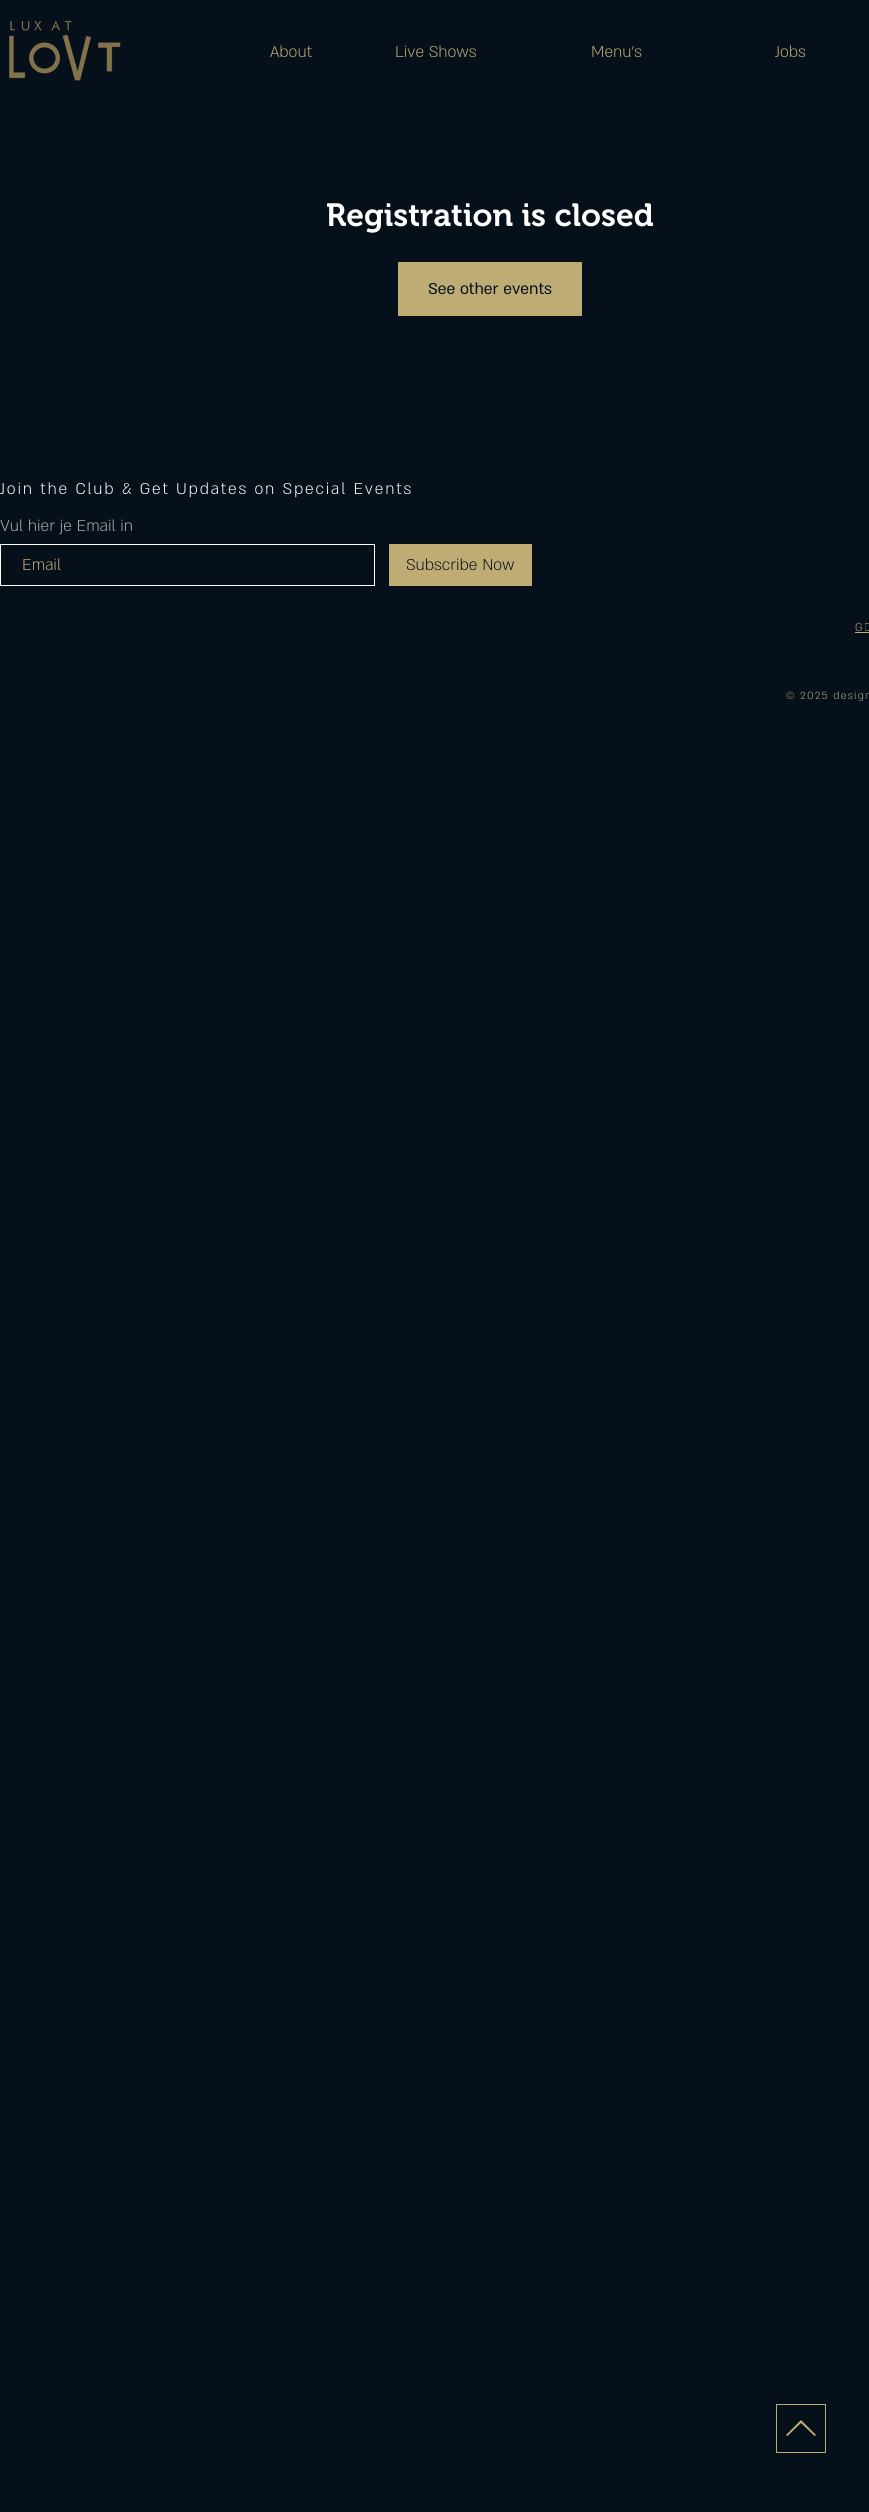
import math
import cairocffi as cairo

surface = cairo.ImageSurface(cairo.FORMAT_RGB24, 869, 2512)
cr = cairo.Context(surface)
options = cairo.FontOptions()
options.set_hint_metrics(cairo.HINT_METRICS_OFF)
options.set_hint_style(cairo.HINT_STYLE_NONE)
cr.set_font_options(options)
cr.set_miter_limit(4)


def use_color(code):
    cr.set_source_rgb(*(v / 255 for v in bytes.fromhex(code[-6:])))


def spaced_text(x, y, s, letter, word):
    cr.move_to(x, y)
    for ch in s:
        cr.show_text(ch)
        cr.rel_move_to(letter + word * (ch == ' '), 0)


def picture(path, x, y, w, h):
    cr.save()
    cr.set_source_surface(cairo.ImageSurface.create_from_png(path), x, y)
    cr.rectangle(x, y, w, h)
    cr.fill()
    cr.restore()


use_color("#06101b")
cr.paint()
picture("img1.png", 9, 20, 112, 61)
cr.select_font_face("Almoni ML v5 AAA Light")
cr.set_font_size(18)
use_color("#beac74")
cr.move_to(270, 57)
cr.show_text("About")
cr.move_to(395, 57)
cr.show_text("Live Shows")
cr.move_to(591, 57)
cr.show_text("Menu's")
cr.move_to(775, 57)
cr.show_text("Jobs")
cr.select_font_face("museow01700 SemiBold")
cr.set_font_size(32)
use_color("#ffffff")
cr.move_to(326, 226)
cr.show_text("Registration is closed")
use_color("#beac74")
cr.rectangle(398, 262, 184, 54)
cr.fill()
cr.select_font_face("Almoni ML v5 AAA")
cr.set_font_size(18)
use_color("#06101b")
cr.move_to(428, 294)
cr.show_text("See other events")
cr.select_font_face("Almoni ML v5 AAA Light")
use_color("#ffffff")
spaced_text(0, 494, "Join the Club & Get Updates on Special Events", 1.8, 0)
use_color("#ababab")
cr.move_to(0, 531)
cr.show_text("Vul hier je Email in")
cr.rectangle(0.5, 544.5, 374, 41)
use_color("#ffffff")
cr.set_line_width(1)
cr.stroke()
use_color("#beac74")
cr.move_to(22, 570)
cr.show_text("Email")
cr.rectangle(389, 544, 143, 42)
cr.fill()
use_color("#06101b")
cr.move_to(406, 570)
cr.show_text("Subscribe Now")
cr.set_font_size(13)
use_color("#beac74")
spaced_text(855, 631, "GD", 1, 0)
cr.rectangle(855, 632, 14, 1)
cr.fill()
cr.set_font_size(12)
spaced_text(786, 699, "© 2025 design", 1.25, 0)
cr.rectangle(776.5, 2404.5, 49, 48)
cr.stroke()
cr.new_path()
cr.move_to(786, 2435)
cr.line_to(787.5, 2436)
cr.line_to(801, 2423)
cr.line_to(814.5, 2436)
cr.line_to(816, 2435)
cr.line_to(801, 2420)
cr.close_path()
cr.fill()
surface.write_to_png("result.png")
